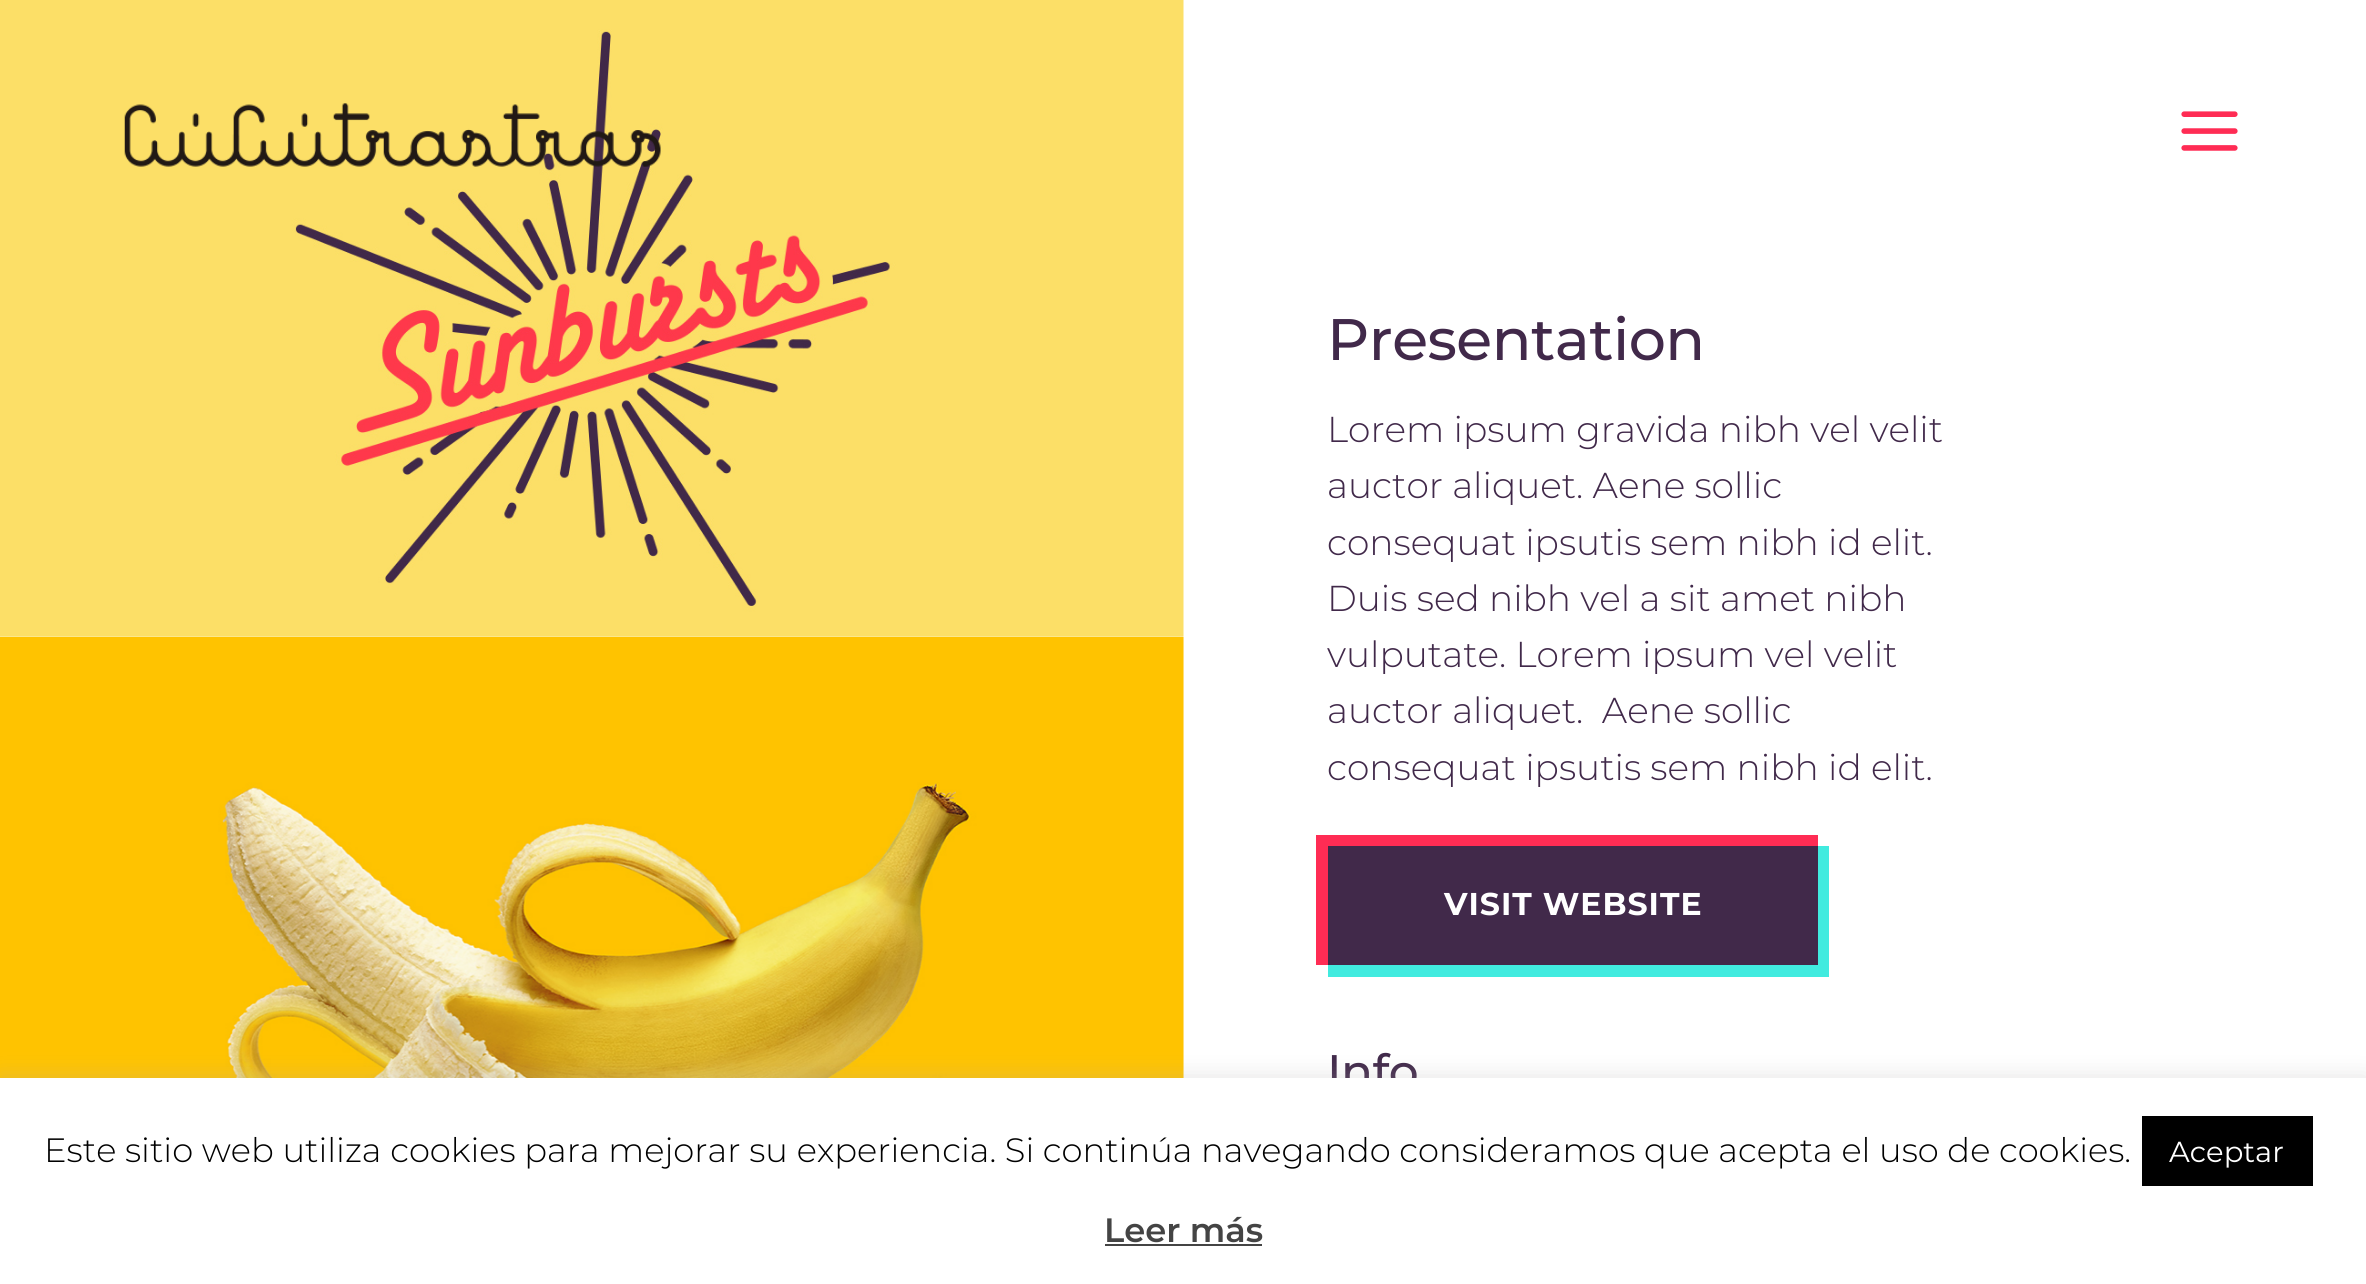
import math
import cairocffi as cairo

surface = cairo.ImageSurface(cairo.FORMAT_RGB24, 2366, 1284)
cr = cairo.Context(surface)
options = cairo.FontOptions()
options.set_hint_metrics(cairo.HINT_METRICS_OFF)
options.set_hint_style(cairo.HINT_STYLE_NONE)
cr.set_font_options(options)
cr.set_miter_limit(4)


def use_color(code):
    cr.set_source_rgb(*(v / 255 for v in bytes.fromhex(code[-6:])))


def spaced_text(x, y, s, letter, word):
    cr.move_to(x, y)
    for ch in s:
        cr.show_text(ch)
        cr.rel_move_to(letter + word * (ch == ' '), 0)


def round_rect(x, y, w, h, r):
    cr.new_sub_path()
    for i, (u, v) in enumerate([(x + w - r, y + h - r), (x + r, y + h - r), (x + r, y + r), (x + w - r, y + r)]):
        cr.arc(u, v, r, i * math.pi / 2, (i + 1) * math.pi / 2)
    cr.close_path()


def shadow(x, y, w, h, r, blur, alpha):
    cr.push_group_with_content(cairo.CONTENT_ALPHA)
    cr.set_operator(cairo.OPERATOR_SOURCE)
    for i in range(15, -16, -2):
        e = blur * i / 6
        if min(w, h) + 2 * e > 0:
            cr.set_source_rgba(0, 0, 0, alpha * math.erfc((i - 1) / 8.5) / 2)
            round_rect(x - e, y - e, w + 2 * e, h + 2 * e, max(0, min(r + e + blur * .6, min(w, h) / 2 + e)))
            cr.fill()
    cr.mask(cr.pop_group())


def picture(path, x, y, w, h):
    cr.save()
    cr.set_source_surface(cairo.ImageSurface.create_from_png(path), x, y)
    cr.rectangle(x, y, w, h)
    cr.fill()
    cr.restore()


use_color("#ffffff")
cr.paint()
picture("img3.png", 0, 0, 1184, 637)
picture("img1.png", 124, 103, 537, 64)
picture("img2.png", 2181, 111, 57, 40)
picture("img4.png", 0, 637, 1184, 441)
cr.select_font_face("Montserrat Medium")
cr.set_font_size(58.5)
use_color("#41294a")
spaced_text(1327, 360, "Presentation", -0.5, 0)
cr.select_font_face("Montserrat Light")
cr.set_font_size(36)
cr.move_to(1327, 442)
cr.show_text("Lorem ipsum gravida nibh vel velit")
cr.move_to(1327, 498)
cr.show_text("auctor aliquet. Aene sollic")
cr.move_to(1327, 555)
cr.show_text("consequat ipsutis sem nibh id elit.")
cr.move_to(1327, 611)
cr.show_text("Duis sed nibh vel a sit amet nibh")
cr.move_to(1327, 667)
cr.show_text("vulputate. Lorem ipsum vel velit")
cr.move_to(1327, 723)
cr.show_text("auctor aliquet.  Aene sollic")
cr.move_to(1327, 780)
cr.show_text("consequat ipsutis sem nibh id elit.")
use_color("#41ebdf")
cr.rectangle(1328, 846, 501, 131)
cr.fill()
use_color("#ff2c54")
cr.rectangle(1316, 835, 502, 130)
cr.fill()
use_color("#41294a")
cr.rectangle(1328, 846, 490, 119)
cr.fill()
cr.select_font_face("Montserrat", cairo.FONT_SLANT_NORMAL, cairo.FONT_WEIGHT_BOLD)
cr.set_font_size(31.5)
use_color("#ffffff")
spaced_text(1444, 915, "VISIT WEBSITE", 1, 0)
cr.select_font_face("Montserrat Medium")
cr.set_font_size(47)
use_color("#41294a")
spaced_text(1327, 1088, "Info", -0.5, 0)
use_color("#acabab")
shadow(0, 1076, 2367, 207, 0, 11, 0.3)
use_color("#ffffff")
cr.rectangle(0, 1078, 2366, 206)
cr.fill()
cr.select_font_face("Montserrat Light")
cr.set_font_size(33.75)
use_color("#000000")
cr.move_to(44, 1162)
cr.show_text("Este sitio web utiliza cookies para mejorar su experiencia. Si continúa navegando consideramos que acepta el uso de cookies.")
cr.rectangle(2142, 1116, 171, 70)
cr.fill()
cr.select_font_face("Montserrat")
cr.set_font_size(29)
use_color("#ffffff")
cr.move_to(2169, 1162)
cr.show_text("Aceptar")
cr.select_font_face("Montserrat SemiBold")
cr.set_font_size(33.75)
use_color("#444444")
cr.move_to(1104, 1242)
cr.show_text("Leer más")
cr.rectangle(1105, 1244, 157, 2)
cr.fill()
surface.write_to_png("result.png")
